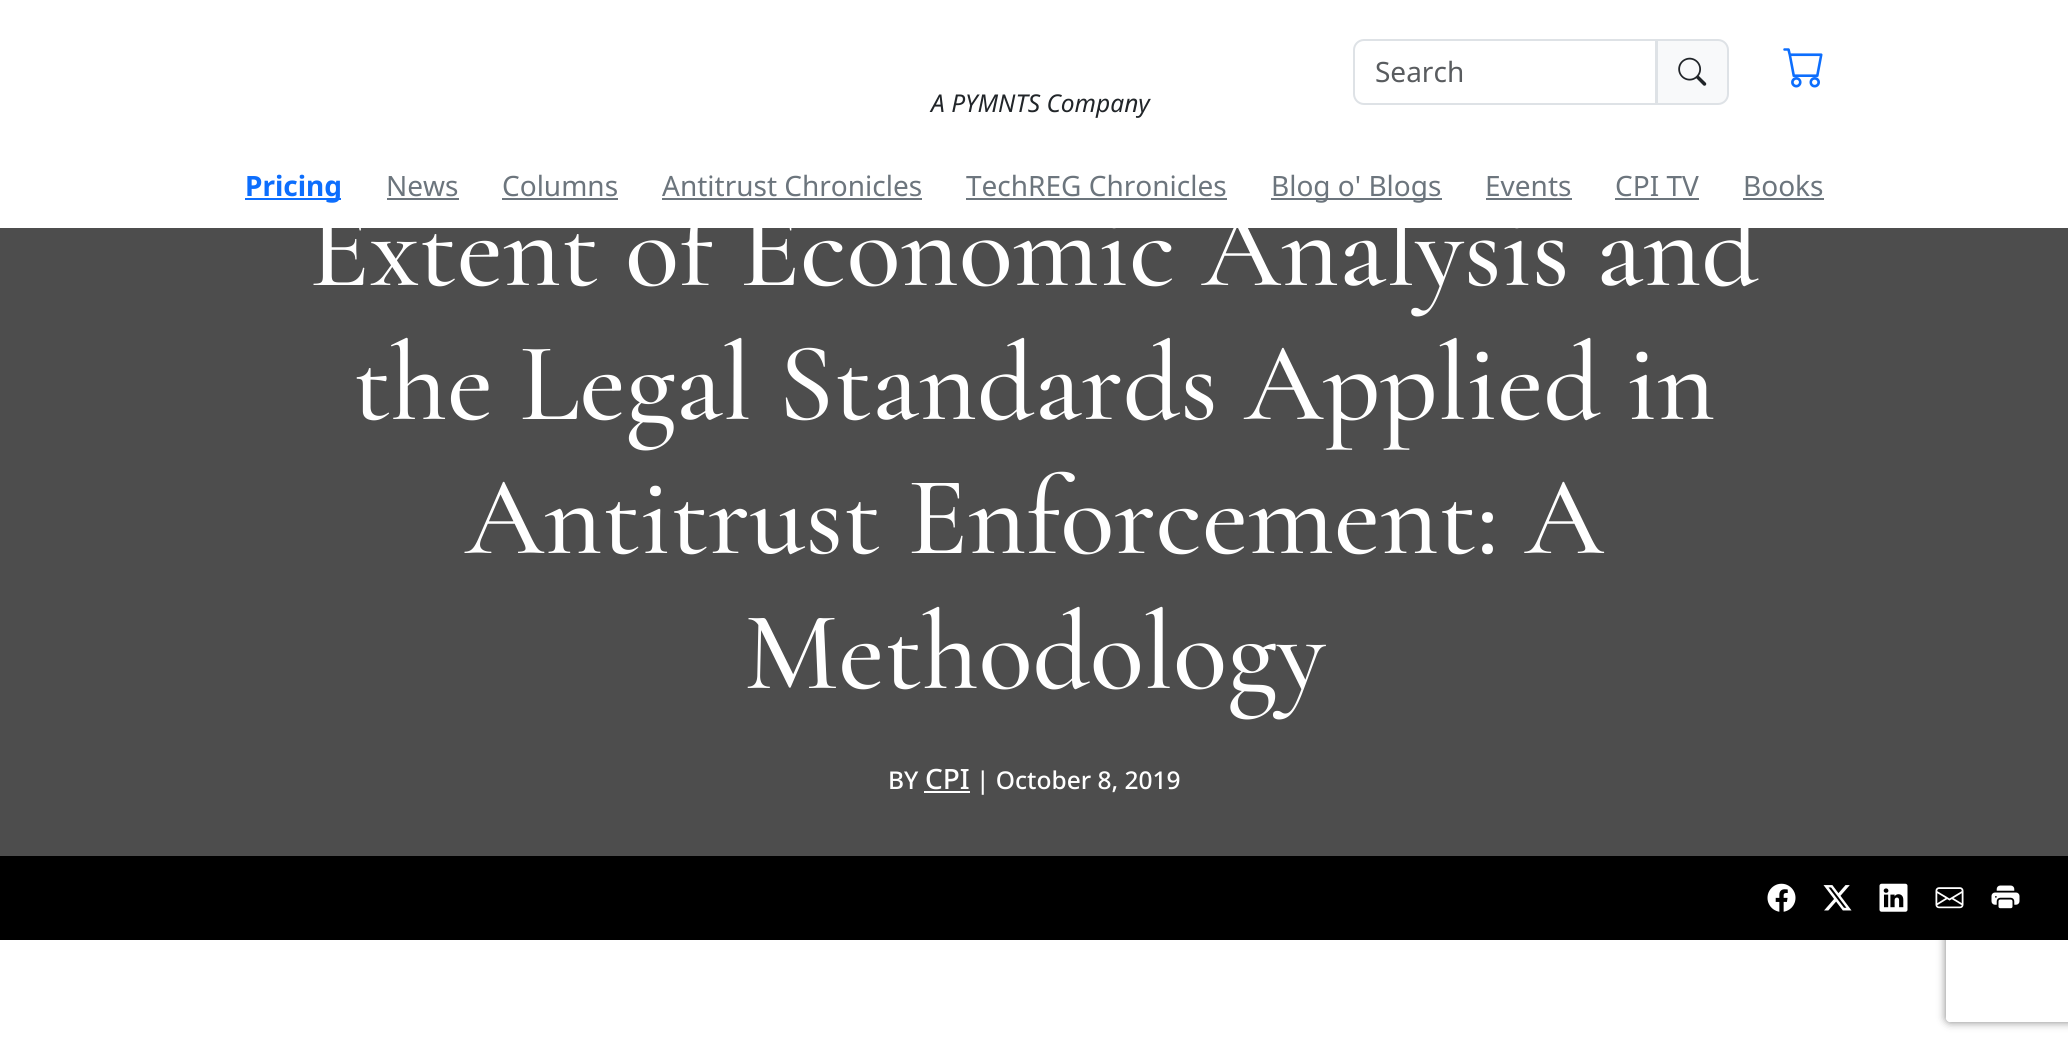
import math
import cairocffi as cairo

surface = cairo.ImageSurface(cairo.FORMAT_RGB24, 2068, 1046)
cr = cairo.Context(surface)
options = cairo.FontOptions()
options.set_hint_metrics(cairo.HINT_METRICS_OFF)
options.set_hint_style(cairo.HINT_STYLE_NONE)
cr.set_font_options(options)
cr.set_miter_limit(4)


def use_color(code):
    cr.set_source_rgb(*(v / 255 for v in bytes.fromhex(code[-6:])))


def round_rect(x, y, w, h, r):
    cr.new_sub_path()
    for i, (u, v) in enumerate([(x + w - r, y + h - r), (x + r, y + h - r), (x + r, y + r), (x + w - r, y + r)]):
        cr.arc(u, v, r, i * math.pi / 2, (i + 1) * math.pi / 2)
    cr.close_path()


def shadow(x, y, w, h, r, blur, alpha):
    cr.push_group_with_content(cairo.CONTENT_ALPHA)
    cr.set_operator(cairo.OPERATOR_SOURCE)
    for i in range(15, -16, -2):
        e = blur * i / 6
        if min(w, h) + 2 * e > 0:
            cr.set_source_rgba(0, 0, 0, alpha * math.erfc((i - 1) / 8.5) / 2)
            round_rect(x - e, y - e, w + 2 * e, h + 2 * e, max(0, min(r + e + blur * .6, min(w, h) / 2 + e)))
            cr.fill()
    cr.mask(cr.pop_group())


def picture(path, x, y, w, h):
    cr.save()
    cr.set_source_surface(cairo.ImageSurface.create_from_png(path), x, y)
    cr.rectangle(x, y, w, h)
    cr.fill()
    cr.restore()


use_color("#ffffff")
cr.paint()
use_color("#f8f9fa")
cr.new_path()
cr.move_to(1657, 40)
cr.line_to(1718, 40)
cr.curve_to(1723.5, 40, 1728, 44.5, 1728, 50)
cr.line_to(1728, 94)
cr.curve_to(1728, 99.5, 1723.5, 104, 1718, 104)
cr.line_to(1657, 104)
cr.close_path()
cr.fill_preserve()
use_color("#dee2e6")
cr.stroke()
cr.new_path()
cr.move_to(1364, 40)
cr.line_to(1656, 40)
cr.line_to(1656, 104)
cr.line_to(1364, 104)
cr.curve_to(1358.5, 104, 1354, 99.5, 1354, 94)
cr.line_to(1354, 50)
cr.curve_to(1354, 44.5, 1358.5, 40, 1364, 40)
cr.close_path()
cr.stroke()
cr.select_font_face("Noto Sans")
cr.set_font_size(28)
use_color("#595c5f")
cr.move_to(1375, 82)
cr.show_text("Search")
picture("img1.png", 1678, 57, 29, 29)
picture("img2.png", 1783, 48, 40, 40)
cr.select_font_face("Noto Sans", cairo.FONT_SLANT_ITALIC)
cr.set_font_size(24.5)
use_color("#212529")
cr.move_to(931, 112)
cr.show_text("A PYMNTS Company")
use_color("#0d6efd")
cr.rectangle(245, 198, 96, 2)
cr.fill()
cr.select_font_face("Noto Sans", cairo.FONT_SLANT_NORMAL, cairo.FONT_WEIGHT_BOLD)
cr.set_font_size(28)
cr.move_to(245, 196)
cr.show_text("Pricing")
cr.select_font_face("Noto Sans")
use_color("#6c757d")
cr.move_to(386, 196)
cr.show_text("News")
cr.rectangle(387, 198, 72, 2)
cr.fill()
cr.move_to(502, 196)
cr.show_text("Columns")
cr.rectangle(502, 198, 116, 2)
cr.fill()
cr.move_to(662, 196)
cr.show_text("Antitrust Chronicles")
cr.rectangle(662, 198, 260, 2)
cr.fill()
cr.move_to(966, 196)
cr.show_text("TechREG Chronicles")
cr.rectangle(966, 198, 261, 2)
cr.fill()
cr.rectangle(1271, 198, 171, 2)
cr.fill()
cr.move_to(1271, 196)
cr.show_text("Blog o' Blogs")
cr.move_to(1485, 196)
cr.show_text("Events")
cr.rectangle(1486, 198, 86, 2)
cr.fill()
cr.move_to(1615, 196)
cr.show_text("CPI TV")
cr.rectangle(1615, 198, 84, 2)
cr.fill()
cr.move_to(1743, 196)
cr.show_text("Books")
cr.rectangle(1743, 198, 81, 2)
cr.fill()
use_color("#4d4d4d")
cr.rectangle(0, 228, 2068, 628)
cr.fill()
cr.save()
cr.rectangle(0, 228, 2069, 628)
cr.clip()
cr.select_font_face("Cormorant Garamond Medium")
cr.set_font_size(112)
use_color("#ffffff")
cr.move_to(309, 285)
cr.show_text("Extent of Economic Analysis and")
cr.restore()
cr.select_font_face("Cormorant Garamond Medium")
cr.set_font_size(112)
use_color("#ffffff")
cr.move_to(353, 419)
cr.show_text("the Legal Standards Applied in")
cr.move_to(465, 553)
cr.show_text("Antitrust Enforcement: A")
cr.move_to(744, 688)
cr.show_text("Methodology")
cr.select_font_face("Noto Sans Medium")
cr.set_font_size(24.5)
cr.move_to(888, 789)
cr.show_text("BY")
cr.set_font_size(28)
cr.move_to(925, 789)
cr.show_text("CPI")
cr.rectangle(924, 791, 46, 2)
cr.fill()
cr.set_font_size(24.5)
cr.move_to(976, 789)
cr.show_text("| October 8, 2019")
cr.save()
cr.set_fill_rule(cairo.FILL_RULE_EVEN_ODD)
cr.new_path()
cr.move_to(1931, 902)
cr.line_to(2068, 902)
cr.line_to(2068, 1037)
cr.line_to(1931, 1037)
cr.close_path()
cr.move_to(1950, 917)
cr.line_to(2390, 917)
cr.curve_to(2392, 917, 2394, 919, 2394, 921)
cr.line_to(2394, 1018)
cr.curve_to(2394, 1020, 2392, 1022, 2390, 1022)
cr.line_to(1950, 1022)
cr.curve_to(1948, 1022, 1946, 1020, 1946, 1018)
cr.line_to(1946, 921)
cr.curve_to(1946, 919, 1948, 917, 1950, 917)
cr.close_path()
cr.clip()
use_color("#808080")
shadow(1946, 917, 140, 105, 4, 4.5, 1)
cr.restore()
use_color("#000000")
cr.rectangle(0, 856, 2068, 84)
cr.fill()
picture("img3.png", 1767, 883, 29, 29)
picture("img4.png", 1823, 885, 29, 26)
picture("img5.png", 1879, 883, 29, 29)
picture("img6.png", 1935, 887, 29, 22)
picture("img7.png", 1991, 885, 29, 24)
surface.write_to_png("result.png")
